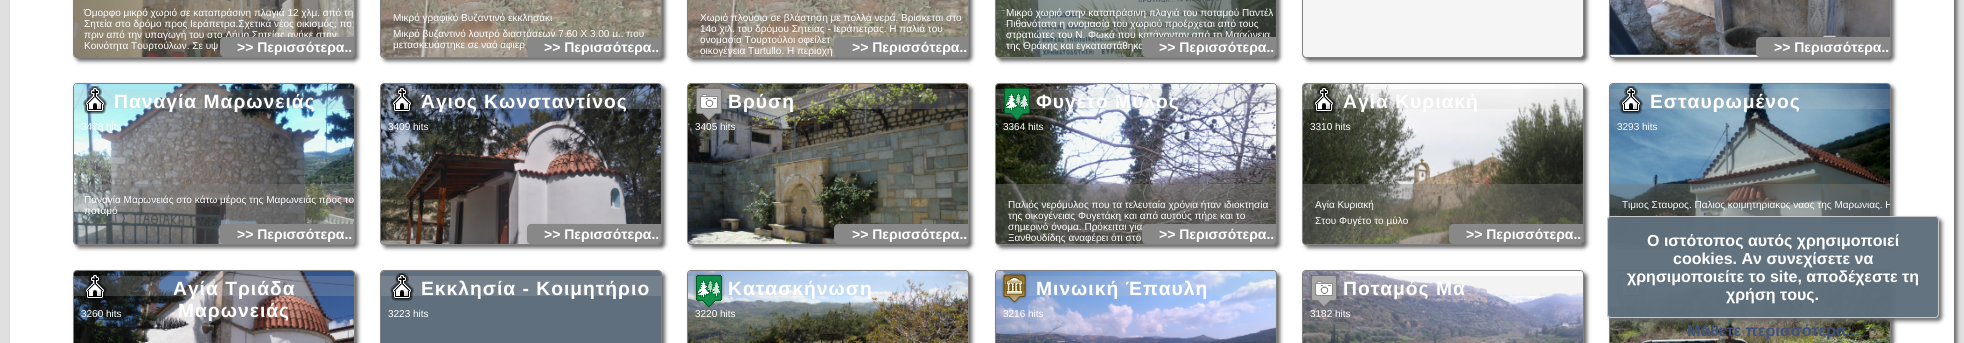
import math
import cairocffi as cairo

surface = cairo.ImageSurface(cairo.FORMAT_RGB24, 1964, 343)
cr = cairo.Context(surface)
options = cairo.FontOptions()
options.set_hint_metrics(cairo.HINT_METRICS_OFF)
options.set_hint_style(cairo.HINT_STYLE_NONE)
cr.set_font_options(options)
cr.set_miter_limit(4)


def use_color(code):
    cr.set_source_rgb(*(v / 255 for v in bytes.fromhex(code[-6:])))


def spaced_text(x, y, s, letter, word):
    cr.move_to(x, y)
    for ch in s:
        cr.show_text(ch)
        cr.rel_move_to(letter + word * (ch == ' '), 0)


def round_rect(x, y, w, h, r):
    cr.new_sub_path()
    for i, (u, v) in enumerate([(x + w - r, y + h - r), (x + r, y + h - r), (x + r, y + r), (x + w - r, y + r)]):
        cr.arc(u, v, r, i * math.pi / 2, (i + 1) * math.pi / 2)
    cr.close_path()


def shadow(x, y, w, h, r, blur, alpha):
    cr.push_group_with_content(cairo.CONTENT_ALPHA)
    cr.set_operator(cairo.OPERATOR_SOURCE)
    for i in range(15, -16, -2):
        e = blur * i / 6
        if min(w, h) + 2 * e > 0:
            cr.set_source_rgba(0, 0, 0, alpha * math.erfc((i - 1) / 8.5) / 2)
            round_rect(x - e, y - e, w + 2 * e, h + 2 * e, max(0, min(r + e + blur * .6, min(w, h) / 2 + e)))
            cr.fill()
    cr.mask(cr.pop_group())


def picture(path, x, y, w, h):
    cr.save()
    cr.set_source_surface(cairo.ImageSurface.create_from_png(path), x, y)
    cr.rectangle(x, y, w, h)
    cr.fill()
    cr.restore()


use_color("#e0e0e0")
cr.paint()
use_color("#666666")
shadow(13, -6, 1944, 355, 0, 2, 1)
use_color("#ffffff")
cr.rectangle(10, 0, 1944, 343)
cr.fill()
use_color("#666666")
shadow(76, -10, 282, 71, 4, 2, 1)
round_rect(73.5, -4.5, 281, 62, 3.5)
use_color("#808080")
cr.set_line_width(1)
cr.stroke()
picture("img1.png", 74, 0, 280, 57)
cr.set_source_rgba(0.498, 0.498, 0.498, 0.4)
cr.new_path()
cr.move_to(74, -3)
cr.line_to(354, -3)
cr.line_to(354, 54)
cr.curve_to(354, 55.5, 352.5, 57, 351, 57)
cr.line_to(77, 57)
cr.curve_to(75.5, 57, 74, 55.5, 74, 54)
cr.close_path()
cr.fill()
cr.select_font_face("Liberation Sans")
cr.set_font_size(10)
use_color("#ffffff")
cr.move_to(84, 16)
cr.show_text("Όμορφο μικρό χωριό σε καταπράσινη πλαγιά 12 χλμ. από τη")
cr.move_to(84, 27)
cr.show_text("Σητεία στο δρόμο προς Ιεράπετρα.Σχετικά νέος οικισμός, πο")
cr.move_to(84, 38)
cr.show_text("πριν από την υπαγωγή του στο Δήμο Σητείας ανήκε στην")
cr.move_to(84, 49)
cr.show_text("Κοινότητα Τουρτούλων. Σε υψ")
cr.save()
round_rect(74, -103, 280, 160, 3)
cr.clip()
use_color("#666666")
shadow(223, 40, 154, 20, 4, 2, 1)
cr.restore()
use_color("#888888")
cr.new_path()
cr.move_to(224, 37)
cr.line_to(354, 37)
cr.line_to(354, 54)
cr.curve_to(354, 55.5, 352.5, 57, 351, 57)
cr.line_to(224, 57)
cr.curve_to(222, 57, 220, 55, 220, 53)
cr.line_to(220, 41)
cr.curve_to(220, 39, 222, 37, 224, 37)
cr.close_path()
cr.fill()
cr.select_font_face("Liberation Sans", cairo.FONT_SLANT_NORMAL, cairo.FONT_WEIGHT_BOLD)
cr.set_font_size(14)
use_color("#ffffff")
cr.move_to(237, 52)
cr.show_text(">> Περισσότερα..")
use_color("#666666")
shadow(383, -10, 282, 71, 4, 2, 1)
round_rect(380.5, -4.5, 281, 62, 3.5)
use_color("#808080")
cr.stroke()
picture("img2.png", 381, 0, 280, 57)
cr.set_source_rgba(0.498, 0.498, 0.498, 0.4)
cr.new_path()
cr.move_to(381, -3)
cr.line_to(661, -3)
cr.line_to(661, 54)
cr.curve_to(661, 55.5, 659.5, 57, 658, 57)
cr.line_to(384, 57)
cr.curve_to(382.5, 57, 381, 55.5, 381, 54)
cr.close_path()
cr.fill()
cr.select_font_face("Liberation Sans")
cr.set_font_size(10)
use_color("#ffffff")
cr.move_to(393, 21)
cr.show_text("Μικρό γραφικό Βυζαντινό εκκλησάκι")
cr.move_to(393, 37)
cr.show_text("Μικρό βυζαντινό λουτρό διαστάσεων 7,60 Χ 3,00 μ., που")
cr.move_to(393, 48)
cr.show_text("μετασκευάστηκε σε ναό αφιερ")
cr.save()
round_rect(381, -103, 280, 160, 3)
cr.clip()
use_color("#666666")
shadow(530, 40, 154, 20, 4, 2, 1)
cr.restore()
use_color("#888888")
cr.new_path()
cr.move_to(531, 37)
cr.line_to(661, 37)
cr.line_to(661, 54)
cr.curve_to(661, 55.5, 659.5, 57, 658, 57)
cr.line_to(531, 57)
cr.curve_to(529, 57, 527, 55, 527, 53)
cr.line_to(527, 41)
cr.curve_to(527, 39, 529, 37, 531, 37)
cr.close_path()
cr.fill()
cr.select_font_face("Liberation Sans", cairo.FONT_SLANT_NORMAL, cairo.FONT_WEIGHT_BOLD)
cr.set_font_size(14)
use_color("#ffffff")
cr.move_to(544, 52)
cr.show_text(">> Περισσότερα..")
use_color("#666666")
shadow(690, -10, 282, 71, 4, 2, 1)
round_rect(687.5, -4.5, 281, 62, 3.5)
use_color("#808080")
cr.stroke()
picture("img2.png", 688, 0, 280, 57)
cr.set_source_rgba(0.498, 0.498, 0.498, 0.4)
cr.new_path()
cr.move_to(688, -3)
cr.line_to(968, -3)
cr.line_to(968, 54)
cr.curve_to(968, 55.5, 966.5, 57, 965, 57)
cr.line_to(691, 57)
cr.curve_to(689.5, 57, 688, 55.5, 688, 54)
cr.close_path()
cr.fill()
cr.select_font_face("Liberation Sans")
cr.set_font_size(10)
use_color("#ffffff")
cr.move_to(700, 21)
cr.show_text("Χωριό πλούσιο σε βλάστηση με πολλά νερά. Βρίσκεται στο")
cr.move_to(700, 32)
cr.show_text("14ο χιλ. του δρόμου Σητείας - Ιεράπετρας. Η παλιά του")
cr.move_to(700, 43)
cr.show_text("ονομασία Τουρτούλοι οφείλετ")
cr.move_to(700, 54)
cr.show_text("οικογένεια Turtullo. Η περιοχή")
cr.save()
round_rect(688, -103, 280, 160, 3)
cr.clip()
use_color("#666666")
shadow(837, 40, 154, 20, 4, 2, 1)
cr.restore()
use_color("#888888")
cr.new_path()
cr.move_to(838, 37)
cr.line_to(968, 37)
cr.line_to(968, 54)
cr.curve_to(968, 55.5, 966.5, 57, 965, 57)
cr.line_to(838, 57)
cr.curve_to(836, 57, 834, 55, 834, 53)
cr.line_to(834, 41)
cr.curve_to(834, 39, 836, 37, 838, 37)
cr.close_path()
cr.fill()
cr.select_font_face("Liberation Sans", cairo.FONT_SLANT_NORMAL, cairo.FONT_WEIGHT_BOLD)
cr.set_font_size(14)
use_color("#ffffff")
cr.move_to(852, 52)
cr.show_text(">> Περισσότερα..")
use_color("#666666")
shadow(998, -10, 282, 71, 4, 2, 1)
round_rect(995.5, -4.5, 281, 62, 3.5)
use_color("#808080")
cr.stroke()
picture("img3.png", 996, 0, 280, 57)
cr.set_source_rgba(0.498, 0.498, 0.498, 0.4)
cr.new_path()
cr.move_to(996, -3)
cr.line_to(1276, -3)
cr.line_to(1276, 54)
cr.curve_to(1276, 55.5, 1274.5, 57, 1273, 57)
cr.line_to(999, 57)
cr.curve_to(997.5, 57, 996, 55.5, 996, 54)
cr.close_path()
cr.fill()
cr.select_font_face("Liberation Sans")
cr.set_font_size(10)
use_color("#ffffff")
cr.move_to(1006, 16)
cr.show_text("Μικρό χωριό στην καταπράσινη πλαγιά του ποταμού Παντέλ")
cr.move_to(1006, 27)
cr.show_text("Πιθανότατα η ονομασία του χωριού προέρχεται από τους")
cr.move_to(1006, 38)
cr.show_text("στρατιώτες του Ν. Φωκά που κατάγονταν από τη Μαρώνεια")
cr.move_to(1006, 49)
cr.show_text("της Θράκης και εγκαταστάθηκα")
cr.save()
round_rect(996, -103, 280, 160, 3)
cr.clip()
use_color("#666666")
shadow(1145, 40, 154, 20, 4, 2, 1)
cr.restore()
use_color("#888888")
cr.new_path()
cr.move_to(1146, 37)
cr.line_to(1276, 37)
cr.line_to(1276, 54)
cr.curve_to(1276, 55.5, 1274.5, 57, 1273, 57)
cr.line_to(1146, 57)
cr.curve_to(1144, 57, 1142, 55, 1142, 53)
cr.line_to(1142, 41)
cr.curve_to(1142, 39, 1144, 37, 1146, 37)
cr.close_path()
cr.fill()
cr.select_font_face("Liberation Sans", cairo.FONT_SLANT_NORMAL, cairo.FONT_WEIGHT_BOLD)
cr.set_font_size(14)
use_color("#ffffff")
cr.move_to(1159, 52)
cr.show_text(">> Περισσότερα..")
use_color("#666666")
shadow(1305, -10, 282, 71, 4, 2, 1)
use_color("#f5f5f5")
round_rect(1302.5, -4.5, 281, 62, 3.5)
cr.fill_preserve()
use_color("#808080")
cr.stroke()
use_color("#666666")
shadow(1612, -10, 282, 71, 4, 2, 1)
use_color("#f5f5f5")
round_rect(1609.5, -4.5, 281, 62, 3.5)
cr.fill_preserve()
use_color("#808080")
cr.stroke()
picture("img4.png", 1610, 0, 280, 55)
cr.save()
round_rect(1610, -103, 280, 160, 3)
cr.clip()
use_color("#666666")
shadow(1759, 40, 154, 20, 4, 2, 1)
cr.restore()
use_color("#888888")
cr.new_path()
cr.move_to(1760, 37)
cr.line_to(1890, 37)
cr.line_to(1890, 54)
cr.curve_to(1890, 55.5, 1888.5, 57, 1887, 57)
cr.line_to(1760, 57)
cr.curve_to(1758, 57, 1756, 55, 1756, 53)
cr.line_to(1756, 41)
cr.curve_to(1756, 39, 1758, 37, 1760, 37)
cr.close_path()
cr.fill()
use_color("#ffffff")
cr.move_to(1774, 52)
cr.show_text(">> Περισσότερα..")
use_color("#666666")
shadow(76, 86, 282, 162, 4, 2, 1)
round_rect(73.5, 83.5, 281, 161, 3.5)
use_color("#808080")
cr.stroke()
picture("img5.png", 74, 84, 280, 160)
cr.set_source_rgba(0.8, 0.8, 0.8, 0.2)
cr.rectangle(74, 89, 280, 20)
cr.fill()
picture("img6.png", 83, 86, 24, 28)
cr.set_font_size(19.25)
use_color("#ffffff")
spaced_text(114, 108, "Παναγία Μαρωνειάς", 1, 0)
cr.select_font_face("Liberation Sans")
cr.set_font_size(10)
cr.move_to(81, 130)
cr.show_text("3478 hits")
cr.set_source_rgba(0.498, 0.498, 0.498, 0.4)
cr.new_path()
cr.move_to(74, 184)
cr.line_to(354, 184)
cr.line_to(354, 241)
cr.curve_to(354, 242.5, 352.5, 244, 351, 244)
cr.line_to(77, 244)
cr.curve_to(75.5, 244, 74, 242.5, 74, 241)
cr.close_path()
cr.fill()
use_color("#ffffff")
cr.move_to(84, 203)
cr.show_text("Παναγία Μαρωνειάς στο κάτω μέρος της Μαρωνειάς προς το")
cr.move_to(84, 214)
cr.show_text("ποταμό")
cr.save()
round_rect(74, 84, 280, 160, 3)
cr.clip()
use_color("#666666")
shadow(223, 227, 154, 20, 4, 2, 1)
cr.restore()
use_color("#888888")
cr.new_path()
cr.move_to(224, 224)
cr.line_to(354, 224)
cr.line_to(354, 241)
cr.curve_to(354, 242.5, 352.5, 244, 351, 244)
cr.line_to(224, 244)
cr.curve_to(222, 244, 220, 242, 220, 240)
cr.line_to(220, 228)
cr.curve_to(220, 226, 222, 224, 224, 224)
cr.close_path()
cr.fill()
cr.select_font_face("Liberation Sans", cairo.FONT_SLANT_NORMAL, cairo.FONT_WEIGHT_BOLD)
cr.set_font_size(14)
use_color("#ffffff")
cr.move_to(237, 239)
cr.show_text(">> Περισσότερα..")
use_color("#666666")
shadow(383, 86, 282, 162, 4, 2, 1)
round_rect(380.5, 83.5, 281, 161, 3.5)
use_color("#808080")
cr.stroke()
picture("img7.png", 381, 84, 280, 160)
cr.set_source_rgba(0.8, 0.8, 0.8, 0.2)
cr.rectangle(381, 89, 280, 20)
cr.fill()
picture("img8.png", 390, 86, 24, 28)
cr.set_font_size(19.25)
use_color("#ffffff")
spaced_text(421, 108, "Άγιος Κωνσταντίνος", 1, 0)
cr.select_font_face("Liberation Sans")
cr.set_font_size(10)
cr.move_to(388, 130)
cr.show_text("3409 hits")
cr.save()
round_rect(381, 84, 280, 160, 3)
cr.clip()
use_color("#666666")
shadow(530, 227, 154, 20, 4, 2, 1)
cr.restore()
use_color("#888888")
cr.new_path()
cr.move_to(531, 224)
cr.line_to(661, 224)
cr.line_to(661, 241)
cr.curve_to(661, 242.5, 659.5, 244, 658, 244)
cr.line_to(531, 244)
cr.curve_to(529, 244, 527, 242, 527, 240)
cr.line_to(527, 228)
cr.curve_to(527, 226, 529, 224, 531, 224)
cr.close_path()
cr.fill()
cr.select_font_face("Liberation Sans", cairo.FONT_SLANT_NORMAL, cairo.FONT_WEIGHT_BOLD)
cr.set_font_size(14)
use_color("#ffffff")
cr.move_to(544, 239)
cr.show_text(">> Περισσότερα..")
use_color("#666666")
shadow(690, 86, 282, 162, 4, 2, 1)
round_rect(687.5, 83.5, 281, 161, 3.5)
use_color("#808080")
cr.stroke()
picture("img9.png", 688, 84, 280, 160)
cr.set_source_rgba(0.8, 0.8, 0.8, 0.2)
cr.rectangle(688, 89, 280, 20)
cr.fill()
picture("img10.png", 693, 85, 32, 35)
cr.set_font_size(19.25)
use_color("#ffffff")
spaced_text(728, 108, "Βρύση", 1, 0)
cr.select_font_face("Liberation Sans")
cr.set_font_size(10)
cr.move_to(695, 130)
cr.show_text("3405 hits")
cr.save()
round_rect(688, 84, 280, 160, 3)
cr.clip()
use_color("#666666")
shadow(837, 227, 154, 20, 4, 2, 1)
cr.restore()
use_color("#888888")
cr.new_path()
cr.move_to(838, 224)
cr.line_to(968, 224)
cr.line_to(968, 241)
cr.curve_to(968, 242.5, 966.5, 244, 965, 244)
cr.line_to(838, 244)
cr.curve_to(836, 244, 834, 242, 834, 240)
cr.line_to(834, 228)
cr.curve_to(834, 226, 836, 224, 838, 224)
cr.close_path()
cr.fill()
cr.select_font_face("Liberation Sans", cairo.FONT_SLANT_NORMAL, cairo.FONT_WEIGHT_BOLD)
cr.set_font_size(14)
use_color("#ffffff")
cr.move_to(852, 239)
cr.show_text(">> Περισσότερα..")
use_color("#666666")
shadow(998, 86, 282, 162, 4, 2, 1)
round_rect(995.5, 83.5, 281, 161, 3.5)
use_color("#808080")
cr.stroke()
picture("img11.png", 996, 84, 280, 160)
cr.set_source_rgba(0.8, 0.8, 0.8, 0.2)
cr.rectangle(996, 89, 280, 20)
cr.fill()
picture("img12.png", 1001, 85, 31, 37)
cr.set_font_size(19.25)
use_color("#ffffff")
spaced_text(1036, 108, "Φυγέτο Μύλος", 1, 0)
cr.select_font_face("Liberation Sans")
cr.set_font_size(10)
cr.move_to(1003, 130)
cr.show_text("3364 hits")
cr.set_source_rgba(0.498, 0.498, 0.498, 0.4)
cr.new_path()
cr.move_to(996, 184)
cr.line_to(1276, 184)
cr.line_to(1276, 241)
cr.curve_to(1276, 242.5, 1274.5, 244, 1273, 244)
cr.line_to(999, 244)
cr.curve_to(997.5, 244, 996, 242.5, 996, 241)
cr.close_path()
cr.fill()
use_color("#ffffff")
cr.move_to(1008, 208)
cr.show_text("Παλιός νερόμυλος που τα τελευταία χρόνια ήταν ιδιοκτησία")
cr.move_to(1008, 219)
cr.show_text("της οικογένειας Φυγετάκη και από αυτούς πήρε και το")
cr.move_to(1008, 230)
cr.show_text("σημερινό όνομα. Πρόκειται για")
cr.move_to(1008, 241)
cr.show_text("Ξανθουδίδης αναφέρει ότι στο")
cr.save()
round_rect(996, 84, 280, 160, 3)
cr.clip()
use_color("#666666")
shadow(1145, 227, 154, 20, 4, 2, 1)
cr.restore()
use_color("#888888")
cr.new_path()
cr.move_to(1146, 224)
cr.line_to(1276, 224)
cr.line_to(1276, 241)
cr.curve_to(1276, 242.5, 1274.5, 244, 1273, 244)
cr.line_to(1146, 244)
cr.curve_to(1144, 244, 1142, 242, 1142, 240)
cr.line_to(1142, 228)
cr.curve_to(1142, 226, 1144, 224, 1146, 224)
cr.close_path()
cr.fill()
cr.select_font_face("Liberation Sans", cairo.FONT_SLANT_NORMAL, cairo.FONT_WEIGHT_BOLD)
cr.set_font_size(14)
use_color("#ffffff")
cr.move_to(1159, 239)
cr.show_text(">> Περισσότερα..")
use_color("#666666")
shadow(1305, 86, 282, 162, 4, 2, 1)
round_rect(1302.5, 83.5, 281, 161, 3.5)
use_color("#808080")
cr.stroke()
picture("img13.png", 1303, 84, 280, 160)
cr.set_source_rgba(0.8, 0.8, 0.8, 0.2)
cr.rectangle(1303, 89, 280, 20)
cr.fill()
picture("img14.png", 1312, 86, 24, 28)
cr.set_font_size(19.25)
use_color("#ffffff")
spaced_text(1343, 108, "Αγία Κυριακή", 1, 0)
cr.select_font_face("Liberation Sans")
cr.set_font_size(10)
cr.move_to(1310, 130)
cr.show_text("3310 hits")
cr.set_source_rgba(0.498, 0.498, 0.498, 0.4)
cr.new_path()
cr.move_to(1303, 184)
cr.line_to(1583, 184)
cr.line_to(1583, 241)
cr.curve_to(1583, 242.5, 1581.5, 244, 1580, 244)
cr.line_to(1306, 244)
cr.curve_to(1304.5, 244, 1303, 242.5, 1303, 241)
cr.close_path()
cr.fill()
use_color("#ffffff")
cr.move_to(1315, 208)
cr.show_text("Αγία Κυριακή")
cr.move_to(1315, 224)
cr.show_text("Στου Φυγέτο το μύλο")
cr.save()
round_rect(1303, 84, 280, 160, 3)
cr.clip()
use_color("#666666")
shadow(1452, 227, 154, 20, 4, 2, 1)
cr.restore()
use_color("#888888")
cr.new_path()
cr.move_to(1453, 224)
cr.line_to(1583, 224)
cr.line_to(1583, 241)
cr.curve_to(1583, 242.5, 1581.5, 244, 1580, 244)
cr.line_to(1453, 244)
cr.curve_to(1451, 244, 1449, 242, 1449, 240)
cr.line_to(1449, 228)
cr.curve_to(1449, 226, 1451, 224, 1453, 224)
cr.close_path()
cr.fill()
cr.select_font_face("Liberation Sans", cairo.FONT_SLANT_NORMAL, cairo.FONT_WEIGHT_BOLD)
cr.set_font_size(14)
use_color("#ffffff")
cr.move_to(1466, 239)
cr.show_text(">> Περισσότερα..")
use_color("#666666")
shadow(1612, 86, 282, 162, 4, 2, 1)
round_rect(1609.5, 83.5, 281, 161, 3.5)
use_color("#808080")
cr.stroke()
picture("img15.png", 1610, 84, 280, 160)
cr.set_source_rgba(0.8, 0.8, 0.8, 0.2)
cr.rectangle(1610, 89, 280, 20)
cr.fill()
picture("img16.png", 1619, 86, 24, 28)
cr.set_font_size(19.25)
use_color("#ffffff")
spaced_text(1650, 108, "Εσταυρωμένος", 1, 0)
cr.select_font_face("Liberation Sans")
cr.set_font_size(10)
cr.move_to(1617, 130)
cr.show_text("3293 hits")
cr.set_source_rgba(0.498, 0.498, 0.498, 0.4)
cr.new_path()
cr.move_to(1610, 184)
cr.line_to(1890, 184)
cr.line_to(1890, 241)
cr.curve_to(1890, 242.5, 1888.5, 244, 1887, 244)
cr.line_to(1613, 244)
cr.curve_to(1611.5, 244, 1610, 242.5, 1610, 241)
cr.close_path()
cr.fill()
cr.save()
round_rect(1610, 84, 280, 160, 3)
cr.clip()
use_color("#ffffff")
cr.move_to(1622, 208)
cr.show_text("Τιμιος Σταυρος. Παλιος κοιμητηριακος ναος της Μαρωνιας. Η")
cr.restore()
cr.save()
round_rect(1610, 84, 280, 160, 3)
cr.clip()
use_color("#666666")
shadow(1759, 227, 154, 20, 4, 2, 1)
cr.restore()
use_color("#888888")
cr.new_path()
cr.move_to(1760, 224)
cr.line_to(1890, 224)
cr.line_to(1890, 241)
cr.curve_to(1890, 242.5, 1888.5, 244, 1887, 244)
cr.line_to(1760, 244)
cr.curve_to(1758, 244, 1756, 242, 1756, 240)
cr.line_to(1756, 228)
cr.curve_to(1756, 226, 1758, 224, 1760, 224)
cr.close_path()
cr.fill()
use_color("#666666")
shadow(76, 273, 282, 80, 4, 2, 1)
round_rect(73.5, 270.5, 281, 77, 3.5)
use_color("#808080")
cr.stroke()
picture("img17.png", 74, 271, 280, 72)
cr.set_source_rgba(0.8, 0.8, 0.8, 0.2)
cr.rectangle(74, 276, 280, 20)
cr.fill()
picture("img18.png", 83, 273, 24, 28)
use_color("#ffffff")
cr.move_to(81, 317)
cr.show_text("3260 hits")
cr.select_font_face("Liberation Sans", cairo.FONT_SLANT_NORMAL, cairo.FONT_WEIGHT_BOLD)
cr.set_font_size(19.25)
spaced_text(173, 295, "Αγία Τριάδα", 1, 0)
spaced_text(178, 317, "Μαρωνειάς", 1, 0)
use_color("#666666")
shadow(383, 273, 282, 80, 4, 2, 1)
round_rect(380.5, 270.5, 281, 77, 3.5)
use_color("#808080")
cr.stroke()
use_color("#5f6f7d")
round_rect(381, 271, 280, 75, 3)
cr.fill()
use_color("#75828d")
cr.rectangle(381, 276, 280, 20)
cr.fill()
picture("img19.png", 390, 273, 24, 28)
use_color("#ffffff")
spaced_text(421, 295, "Εκκλησία - Κοιμητήριο", 1, 0)
cr.select_font_face("Liberation Sans")
cr.set_font_size(10)
cr.move_to(388, 317)
cr.show_text("3223 hits")
use_color("#666666")
shadow(690, 273, 282, 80, 4, 2, 1)
round_rect(687.5, 270.5, 281, 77, 3.5)
use_color("#808080")
cr.stroke()
picture("img20.png", 688, 271, 280, 72)
cr.set_source_rgba(0.8, 0.8, 0.8, 0.2)
cr.rectangle(688, 276, 280, 20)
cr.fill()
picture("img21.png", 693, 272, 32, 37)
cr.select_font_face("Liberation Sans", cairo.FONT_SLANT_NORMAL, cairo.FONT_WEIGHT_BOLD)
cr.set_font_size(19.25)
use_color("#ffffff")
spaced_text(728, 295, "Κατασκήνωση", 1, 0)
cr.select_font_face("Liberation Sans")
cr.set_font_size(10)
cr.move_to(695, 317)
cr.show_text("3220 hits")
use_color("#666666")
shadow(998, 273, 282, 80, 4, 2, 1)
round_rect(995.5, 270.5, 281, 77, 3.5)
use_color("#808080")
cr.stroke()
picture("img22.png", 996, 271, 280, 72)
cr.set_source_rgba(0.8, 0.8, 0.8, 0.2)
cr.rectangle(996, 276, 280, 20)
cr.fill()
picture("img23.png", 1001, 272, 27, 32)
cr.select_font_face("Liberation Sans", cairo.FONT_SLANT_NORMAL, cairo.FONT_WEIGHT_BOLD)
cr.set_font_size(19.25)
use_color("#ffffff")
spaced_text(1036, 295, "Μινωική Έπαυλη", 1, 0)
cr.select_font_face("Liberation Sans")
cr.set_font_size(10)
cr.move_to(1003, 317)
cr.show_text("3216 hits")
use_color("#666666")
shadow(1305, 273, 282, 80, 4, 2, 1)
round_rect(1302.5, 270.5, 281, 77, 3.5)
use_color("#808080")
cr.stroke()
picture("img24.png", 1303, 271, 280, 72)
cr.set_source_rgba(0.8, 0.8, 0.8, 0.2)
cr.rectangle(1303, 276, 280, 20)
cr.fill()
picture("img25.png", 1308, 272, 32, 37)
cr.select_font_face("Liberation Sans", cairo.FONT_SLANT_NORMAL, cairo.FONT_WEIGHT_BOLD)
cr.set_font_size(19.25)
use_color("#ffffff")
spaced_text(1343, 295, "Ποταμός Μα", 1, 0)
cr.select_font_face("Liberation Sans")
cr.set_font_size(10)
cr.move_to(1310, 317)
cr.show_text("3182 hits")
use_color("#666666")
shadow(1612, 273, 282, 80, 4, 2, 1)
round_rect(1609.5, 270.5, 281, 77, 3.5)
use_color("#808080")
cr.stroke()
picture("img26.png", 1610, 271, 280, 72)
cr.set_source_rgba(0.8, 0.8, 0.8, 0.2)
cr.rectangle(1610, 276, 280, 20)
cr.fill()
picture("img27.png", 1615, 272, 32, 36)
cr.save()
cr.set_fill_rule(cairo.FILL_RULE_EVEN_ODD)
cr.new_path()
cr.move_to(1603, 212)
cr.line_to(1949, 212)
cr.line_to(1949, 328)
cr.line_to(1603, 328)
cr.close_path()
cr.move_to(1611, 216)
cr.line_to(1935, 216)
cr.curve_to(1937, 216, 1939, 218, 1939, 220)
cr.line_to(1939, 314)
cr.curve_to(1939, 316, 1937, 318, 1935, 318)
cr.line_to(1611, 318)
cr.curve_to(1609, 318, 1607, 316, 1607, 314)
cr.line_to(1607, 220)
cr.curve_to(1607, 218, 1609, 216, 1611, 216)
cr.close_path()
cr.clip()
use_color("#666666")
shadow(1610, 219, 332, 102, 4, 2, 0.97)
cr.restore()
cr.set_source_rgba(0.373, 0.435, 0.49, 0.97)
round_rect(1607, 216, 332, 102, 4)
cr.fill()
round_rect(1607.5, 216.5, 331, 101, 3.5)
cr.set_source_rgba(0.8, 0.8, 0.8, 0.97)
cr.stroke()
cr.select_font_face("Liberation Sans", cairo.FONT_SLANT_NORMAL, cairo.FONT_WEIGHT_BOLD)
cr.set_font_size(16)
use_color("#ffffff")
cr.move_to(1647, 246)
cr.show_text("Ο ιστότοπος αυτός χρησιμοποιεί")
cr.move_to(1673, 264)
cr.show_text("cookies. Αν συνεχίσετε να")
cr.move_to(1627, 282)
cr.show_text("χρησιμοποιείτε το site, αποδέχεστε τη")
cr.move_to(1726, 300)
cr.show_text("χρήση τους.")
use_color("#3e537b")
cr.move_to(1687, 336)
cr.show_text("Μάθετε περισσότερα...")
surface.write_to_png("result.png")
